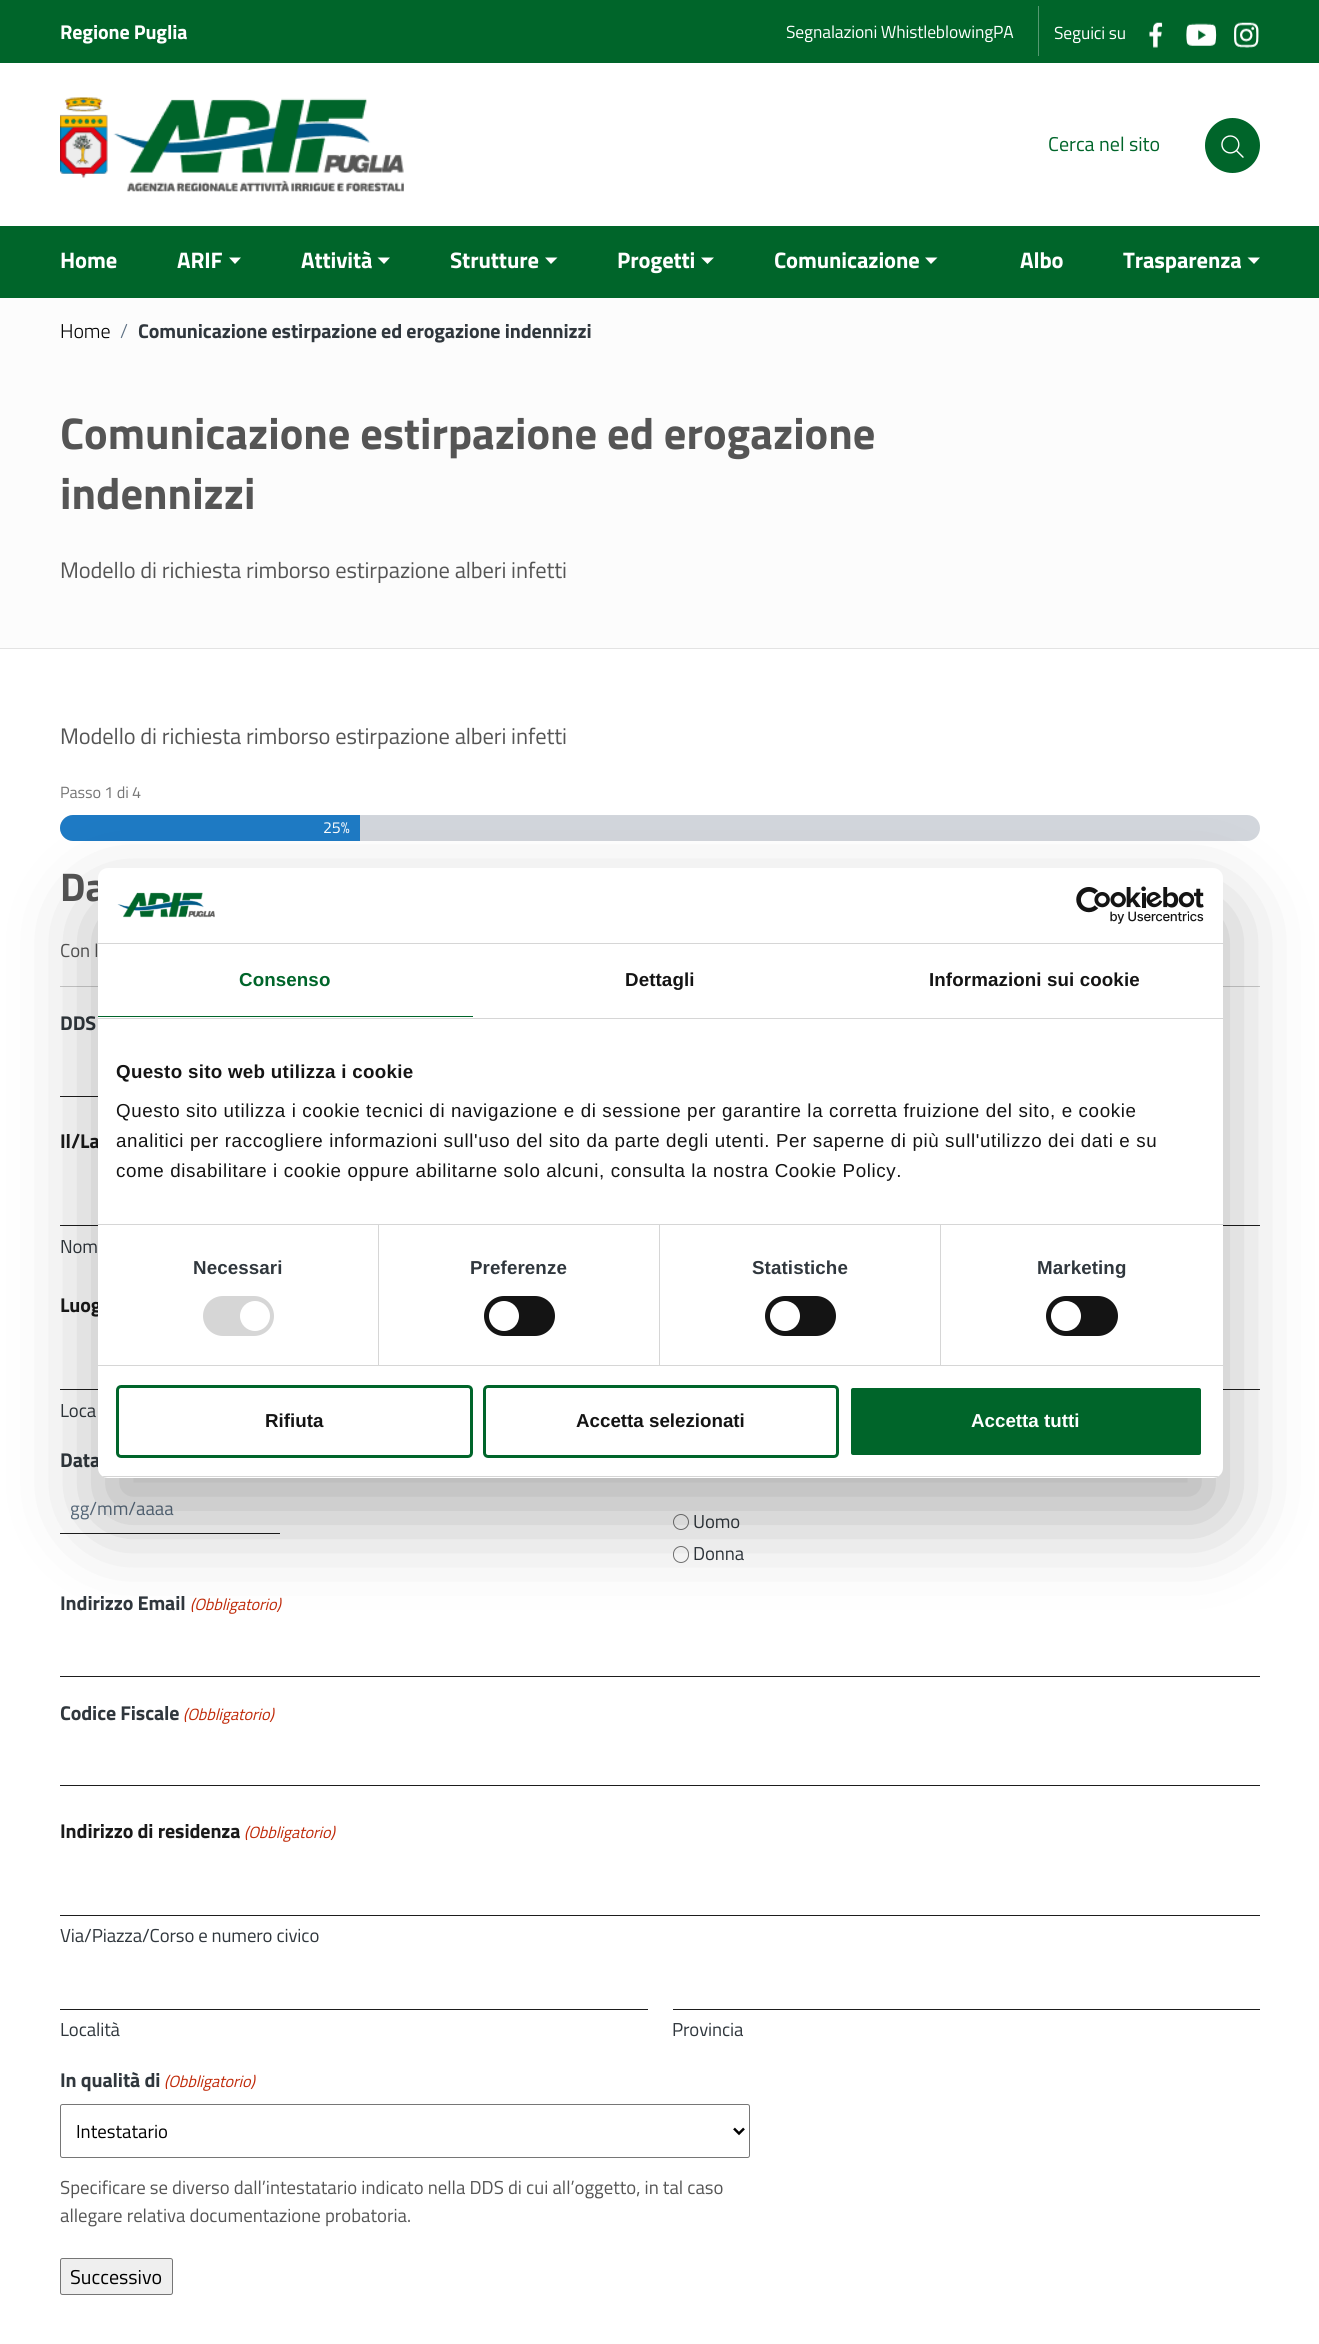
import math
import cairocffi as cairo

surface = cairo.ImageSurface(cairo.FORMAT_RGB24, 1319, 2344)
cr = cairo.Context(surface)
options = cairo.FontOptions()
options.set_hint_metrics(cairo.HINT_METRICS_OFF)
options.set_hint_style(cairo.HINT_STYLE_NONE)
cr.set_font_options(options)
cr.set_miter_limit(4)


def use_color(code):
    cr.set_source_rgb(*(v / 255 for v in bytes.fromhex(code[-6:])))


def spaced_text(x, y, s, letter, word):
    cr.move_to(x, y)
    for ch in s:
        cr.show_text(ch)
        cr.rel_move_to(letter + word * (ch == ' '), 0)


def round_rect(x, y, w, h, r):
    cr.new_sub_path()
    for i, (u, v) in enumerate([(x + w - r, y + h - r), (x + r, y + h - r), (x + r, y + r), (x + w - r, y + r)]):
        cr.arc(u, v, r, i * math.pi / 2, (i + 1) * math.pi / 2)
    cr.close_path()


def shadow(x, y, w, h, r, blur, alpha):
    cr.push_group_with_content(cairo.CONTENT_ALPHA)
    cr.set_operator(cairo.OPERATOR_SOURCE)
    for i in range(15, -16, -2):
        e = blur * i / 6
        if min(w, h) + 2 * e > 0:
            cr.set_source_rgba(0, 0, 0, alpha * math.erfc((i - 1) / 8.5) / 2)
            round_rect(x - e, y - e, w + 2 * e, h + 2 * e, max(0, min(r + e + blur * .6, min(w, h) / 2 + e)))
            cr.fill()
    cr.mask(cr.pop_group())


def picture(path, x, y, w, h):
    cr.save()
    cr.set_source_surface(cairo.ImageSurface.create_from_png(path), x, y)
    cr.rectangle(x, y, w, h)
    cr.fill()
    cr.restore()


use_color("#ffffff")
cr.paint()
use_color("#00652a")
cr.rectangle(0, 0, 1319, 298)
cr.fill()
cr.select_font_face("Titillium Web", cairo.FONT_SLANT_NORMAL, cairo.FONT_WEIGHT_BOLD)
cr.set_font_size(20)
use_color("#ffffff")
spaced_text(60, 39, "Regione Puglia", -0.12, 0)
use_color("#559871")
cr.rectangle(1038, 6, 1, 50)
cr.fill()
cr.select_font_face("Titillium Web")
cr.set_font_size(17.5)
use_color("#ffffff")
spaced_text(786, 38, "Segnalazioni WhistleblowingPA", -0.12, 0)
spaced_text(1054, 39, "Seguici su", -0.12, 0)
picture("img1.png", 1149, 22, 14, 26)
picture("img2.png", 1186, 23, 31, 23)
picture("img3.png", 1234, 22, 25, 26)
cr.rectangle(0, 63, 1319, 163)
cr.fill()
picture("img4.png", 60, 97, 344, 95)
cr.set_font_size(20)
use_color("#00652a")
cr.move_to(1048, 151)
cr.show_text("Cerca nel sito")
cr.new_path()
cr.arc(1232.5, 145.5, 27.5, 0, 2 * math.pi)
cr.fill()
picture("img5.png", 1221, 135, 23, 23)
cr.select_font_face("Titillium Web", cairo.FONT_SLANT_NORMAL, cairo.FONT_WEIGHT_BOLD)
cr.set_font_size(22.5)
use_color("#ffffff")
spaced_text(60, 268, "Home", -0.12, 0)
spaced_text(177, 268, "ARIF", -0.12, 0)
cr.new_path()
cr.move_to(229, 257.5)
cr.line_to(241, 257.5)
cr.line_to(235, 264)
cr.close_path()
cr.fill()
spaced_text(301, 268, "Attività", -0.12, 0)
cr.new_path()
cr.move_to(377.5, 257.5)
cr.line_to(390, 257.5)
cr.line_to(384, 264)
cr.close_path()
cr.fill()
spaced_text(450, 268, "Strutture", -0.12, 0)
cr.new_path()
cr.move_to(545, 257.5)
cr.line_to(557.5, 257.5)
cr.line_to(551, 264)
cr.close_path()
cr.fill()
spaced_text(617, 268, "Progetti", -0.12, 0)
cr.new_path()
cr.move_to(701, 257.5)
cr.line_to(714, 257.5)
cr.line_to(707.5, 264)
cr.close_path()
cr.fill()
spaced_text(774, 268, "Comunicazione", -0.12, 0)
cr.new_path()
cr.move_to(925, 257.5)
cr.line_to(937.5, 257.5)
cr.line_to(931, 264)
cr.close_path()
cr.fill()
spaced_text(1020, 268, "Albo", -0.12, 0)
spaced_text(1123, 268, "Trasparenza", -0.12, 0)
cr.new_path()
cr.move_to(1247.5, 257.5)
cr.line_to(1260, 257.5)
cr.line_to(1254, 264)
cr.close_path()
cr.fill()
use_color("#fcfcfc")
cr.rectangle(0, 298, 1319, 350)
cr.fill()
cr.select_font_face("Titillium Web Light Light")
cr.set_font_size(20)
use_color("#000000")
spaced_text(60, 338, "Home", -0.12, 0)
use_color("#5d7083")
spaced_text(120, 338, "/", -0.12, 0)
cr.select_font_face("Titillium Web", cairo.FONT_SLANT_NORMAL, cairo.FONT_WEIGHT_BOLD)
use_color("#30373d")
spaced_text(138, 338, "Comunicazione estirpazione ed erogazione indennizzi", -0.12, 0)
use_color("#e3e3e3")
cr.rectangle(0, 648, 1319, 1)
cr.fill()
cr.set_font_size(44.4)
use_color("#555555")
cr.move_to(60, 449)
cr.show_text("Comunicazione estirpazione ed erogazione")
cr.move_to(60, 509)
cr.show_text("indennizzi")
cr.select_font_face("Titillium Web")
cr.set_font_size(22.5)
spaced_text(60, 578, "Modello di richiesta rimborso estirpazione alberi infetti", -0.12, 0)
spaced_text(60, 744, "Modello di richiesta rimborso estirpazione alberi infetti", -0.12, 0)
cr.set_font_size(16.25)
use_color("#767676")
spaced_text(60, 798, "Passo 1 di 4", -0.12, 0)
use_color("#d2d6dc")
round_rect(60, 815, 1200, 26, 13)
cr.fill()
use_color("#1e7ac4")
cr.new_path()
cr.move_to(73, 815)
cr.line_to(360, 815)
cr.line_to(360, 841)
cr.line_to(73, 841)
cr.curve_to(66, 841, 60, 835, 60, 828)
cr.curve_to(60, 821, 66, 815, 73, 815)
cr.close_path()
cr.fill()
cr.set_font_size(16)
use_color("#ffffff")
spaced_text(323, 833, "25%", -0.12, 0)
use_color("#cccccc")
cr.rectangle(60, 986, 1200, 1)
cr.fill()
cr.select_font_face("Titillium Web", cairo.FONT_SLANT_NORMAL, cairo.FONT_WEIGHT_BOLD)
cr.set_font_size(40)
use_color("#555555")
spaced_text(60, 901, "Da", -0.12, 0)
cr.select_font_face("Titillium Web")
cr.set_font_size(18.75)
cr.move_to(60, 957)
cr.show_text("Con l")
cr.select_font_face("Titillium Web", cairo.FONT_SLANT_NORMAL, cairo.FONT_WEIGHT_BOLD)
cr.set_font_size(20)
use_color("#30373d")
spaced_text(60, 1030, "DDS", -0.12, 0)
use_color("#1d1d1d")
cr.rectangle(60, 1096, 38, 1)
cr.fill()
use_color("#1a1a1a")
spaced_text(60, 1148, "Il/La", -0.12, 0)
use_color("#1d1d1d")
cr.rectangle(1223, 1225, 37, 1)
cr.fill()
cr.rectangle(60, 1225, 38, 1)
cr.fill()
cr.select_font_face("Titillium Web")
cr.set_font_size(18.75)
use_color("#30373d")
spaced_text(60, 1253, "Nom", -0.12, 0)
cr.select_font_face("Titillium Web", cairo.FONT_SLANT_NORMAL, cairo.FONT_WEIGHT_BOLD)
cr.set_font_size(20)
use_color("#1a1a1a")
spaced_text(60, 1312, "Luog", -0.12, 0)
use_color("#1d1d1d")
cr.rectangle(1223, 1389, 37, 1)
cr.fill()
cr.rectangle(60, 1389, 38, 1)
cr.fill()
cr.select_font_face("Titillium Web")
cr.set_font_size(18.75)
use_color("#30373d")
spaced_text(60, 1417, "Loca", -0.12, 0)
cr.select_font_face("Titillium Web", cairo.FONT_SLANT_NORMAL, cairo.FONT_WEIGHT_BOLD)
cr.set_font_size(20)
spaced_text(60, 1467, "Data", -0.12, 0)
use_color("#1d1d1d")
cr.rectangle(60, 1533, 220, 1)
cr.fill()
cr.select_font_face("Titillium Web")
cr.set_font_size(18.75)
use_color("#5d7083")
cr.move_to(70, 1515)
cr.show_text("gg/mm/aaaa")
cr.new_path()
cr.arc(681, 1522, 7.5, 0, 2 * math.pi)
use_color("#767676")
cr.set_line_width(1)
cr.stroke()
use_color("#30373d")
spaced_text(693, 1528, "Uomo", -0.12, 0)
round_rect(673.5, 1546.5, 15, 16, 7.5)
use_color("#767676")
cr.stroke()
use_color("#30373d")
spaced_text(693, 1560, "Donna", -0.12, 0)
cr.select_font_face("Titillium Web", cairo.FONT_SLANT_NORMAL, cairo.FONT_WEIGHT_BOLD)
cr.set_font_size(20)
spaced_text(60, 1610, "Indirizzo Email", -0.12, 0)
cr.select_font_face("Titillium Web", cairo.FONT_SLANT_ITALIC)
cr.set_font_size(16.25)
use_color("#c02b0a")
spaced_text(190, 1610, "(Obbligatorio)", -0.12, 0)
use_color("#1d1d1d")
cr.rectangle(60, 1676, 1200, 1)
cr.fill()
cr.select_font_face("Titillium Web", cairo.FONT_SLANT_NORMAL, cairo.FONT_WEIGHT_BOLD)
cr.set_font_size(20)
use_color("#30373d")
spaced_text(60, 1720, "Codice Fiscale", -0.12, 0)
cr.select_font_face("Titillium Web", cairo.FONT_SLANT_ITALIC)
cr.set_font_size(16.25)
use_color("#c02b0a")
spaced_text(183, 1720, "(Obbligatorio)", -0.12, 0)
use_color("#1d1d1d")
cr.rectangle(60, 1785, 1200, 1)
cr.fill()
cr.select_font_face("Titillium Web", cairo.FONT_SLANT_NORMAL, cairo.FONT_WEIGHT_BOLD)
cr.set_font_size(20)
use_color("#1a1a1a")
spaced_text(60, 1838, "Indirizzo di residenza", -0.12, 0)
cr.select_font_face("Titillium Web", cairo.FONT_SLANT_ITALIC)
cr.set_font_size(16.25)
use_color("#c02b0a")
spaced_text(244, 1838, "(Obbligatorio)", -0.12, 0)
use_color("#1d1d1d")
cr.rectangle(60, 1915, 1200, 1)
cr.fill()
cr.select_font_face("Titillium Web")
cr.set_font_size(18.75)
use_color("#30373d")
spaced_text(60, 1942, "Via/Piazza/Corso e numero civico", -0.12, 0)
use_color("#1d1d1d")
cr.rectangle(60, 2009, 588, 1)
cr.fill()
use_color("#30373d")
spaced_text(60, 2036, "Località", -0.12, 0)
use_color("#1d1d1d")
cr.rectangle(673, 2009, 587, 1)
cr.fill()
use_color("#30373d")
spaced_text(672, 2036, "Provincia", -0.12, 0)
cr.select_font_face("Titillium Web", cairo.FONT_SLANT_NORMAL, cairo.FONT_WEIGHT_BOLD)
cr.set_font_size(20)
spaced_text(60, 2087, "In qualità di", -0.12, 0)
cr.select_font_face("Titillium Web", cairo.FONT_SLANT_ITALIC)
cr.set_font_size(16.25)
use_color("#c02b0a")
spaced_text(164, 2087, "(Obbligatorio)", -0.12, 0)
round_rect(60.5, 2104.5, 689, 53, 2)
use_color("#767676")
cr.stroke()
cr.new_path()
cr.move_to(734, 2128.5)
cr.line_to(739, 2133.5)
cr.line_to(744, 2128.5)
use_color("#000000")
cr.set_line_width(2.5)
cr.stroke()
cr.select_font_face("Titillium Web")
cr.set_font_size(18.75)
cr.move_to(76, 2138)
cr.show_text("Intestatario")
use_color("#555555")
cr.move_to(60, 2194)
cr.show_text("Specificare se diverso dall’intestatario indicato nella DDS di cui all’oggetto, in tal caso")
cr.move_to(60, 2222)
cr.show_text("allegare relativa documentazione probatoria.")
use_color("#efefef")
round_rect(60.5, 2258.5, 112, 36, 2)
cr.fill_preserve()
use_color("#767676")
cr.set_line_width(1)
cr.stroke()
cr.set_font_size(20)
use_color("#000000")
cr.move_to(70, 2284)
cr.show_text("Successivo")
use_color("#000000")
shadow(98, 908, 1125, 610, 10, 42.5, 0.3)
use_color("#ffffff")
round_rect(98, 868, 1125, 610, 10)
cr.fill()
use_color("#d6d6d6")
cr.rectangle(98, 943, 1125, 1)
cr.fill()
picture("img6.png", 117, 892, 98, 26)
picture("img7.png", 1076, 886, 128, 38)
cr.rectangle(98, 1018, 1125, 1)
cr.fill()
use_color("#00652a")
cr.rectangle(98, 1016, 375, 1)
cr.fill()
cr.select_font_face("Liberation Sans", cairo.FONT_SLANT_NORMAL, cairo.FONT_WEIGHT_BOLD)
cr.set_font_size(18.75)
spaced_text(239, 986, "Consenso", 0.1, 0)
use_color("#141414")
spaced_text(625, 986, "Dettagli", 0.1, 0)
spaced_text(929, 986, "Informazioni sui cookie", 0.1, 0)
use_color("#d6d6d6")
cr.rectangle(98, 1224, 1125, 1)
cr.fill()
use_color("#141414")
spaced_text(116, 1078, "Questo sito web utilizza i cookie", 0.3, 0)
cr.select_font_face("Liberation Sans")
spaced_text(116, 1117, "Questo sito utilizza i cookie tecnici di navigazione e di sessione per garantire la corretta fruizione del sito, e cookie", 0.62, 0)
spaced_text(116, 1147, "analitici per raccogliere informazioni sull'uso del sito da parte degli utenti. Per saperne di più sull'utilizzo dei dati e su", 0.62, 0)
spaced_text(116, 1177, "come disabilitare i cookie oppure abilitarne solo alcuni, consulta la nostra Cookie Policy.", 0.62, 0)
use_color("#d6d6d6")
cr.rectangle(98, 1365, 1125, 1)
cr.fill()
cr.rectangle(378, 1225, 1, 140)
cr.fill()
cr.select_font_face("Liberation Sans", cairo.FONT_SLANT_NORMAL, cairo.FONT_WEIGHT_BOLD)
use_color("#30373d")
spaced_text(193, 1274, "Necessari", 0.1, 0)
use_color("#d6d6d6")
round_rect(203, 1296, 71, 40, 20)
cr.fill()
use_color("#ffffff")
cr.arc(255, 1316, 15, 0, 2 * math.pi)
cr.fill()
use_color("#d6d6d6")
cr.rectangle(659, 1225, 1, 140)
cr.fill()
use_color("#30373d")
spaced_text(470, 1274, "Preferenze", 0.1, 0)
use_color("#141414")
round_rect(484, 1296, 71, 40, 20)
cr.fill()
use_color("#ffffff")
cr.arc(504, 1316, 15, 0, 2 * math.pi)
cr.fill()
use_color("#d6d6d6")
cr.rectangle(940, 1225, 1, 140)
cr.fill()
use_color("#30373d")
spaced_text(752, 1274, "Statistiche", 0.1, 0)
use_color("#141414")
round_rect(765, 1296, 71, 40, 20)
cr.fill()
use_color("#ffffff")
cr.arc(785, 1316, 15, 0, 2 * math.pi)
cr.fill()
use_color("#30373d")
spaced_text(1037, 1274, "Marketing", 0.1, 0)
use_color("#141414")
round_rect(1046, 1296, 72, 40, 20)
cr.fill()
use_color("#ffffff")
cr.arc(1066, 1316, 15, 0, 2 * math.pi)
cr.fill()
cr.save()
round_rect(98, 868, 1125, 610, 10)
cr.clip()
use_color("#d6d6d6")
cr.rectangle(98, 1476, 1125, 1)
cr.fill()
cr.restore()
round_rect(117.5, 1386.5, 354, 70, 3.5)
use_color("#00652a")
cr.set_line_width(3)
cr.stroke()
use_color("#141414")
cr.move_to(265, 1427)
cr.show_text("Rifiuta")
round_rect(484.5, 1386.5, 353, 70, 3.5)
use_color("#00652a")
cr.stroke()
use_color("#141414")
cr.move_to(576, 1427)
cr.show_text("Accetta selezionati")
use_color("#00652a")
round_rect(849.5, 1386.5, 353, 70, 3.5)
cr.fill_preserve()
use_color("#ffffff")
cr.stroke()
cr.move_to(971, 1427)
cr.show_text("Accetta tutti")
surface.write_to_png("result.png")
